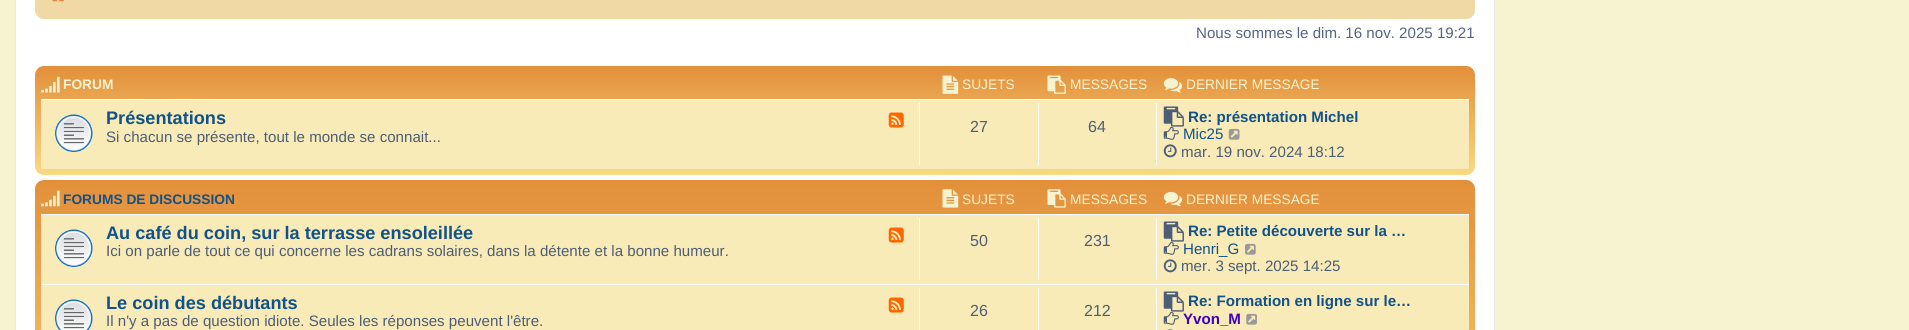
import math
import cairocffi as cairo

surface = cairo.ImageSurface(cairo.FORMAT_RGB24, 1909, 330)
cr = cairo.Context(surface)
options = cairo.FontOptions()
options.set_hint_metrics(cairo.HINT_METRICS_OFF)
options.set_hint_style(cairo.HINT_STYLE_NONE)
cr.set_font_options(options)
cr.set_miter_limit(4)


def use_color(code):
    cr.set_source_rgb(*(v / 255 for v in bytes.fromhex(code[-6:])))


def round_rect(x, y, w, h, r):
    cr.new_sub_path()
    for i, (u, v) in enumerate([(x + w - r, y + h - r), (x + r, y + h - r), (x + r, y + r), (x + w - r, y + r)]):
        cr.arc(u, v, r, i * math.pi / 2, (i + 1) * math.pi / 2)
    cr.close_path()


def picture(path, x, y, w, h):
    cr.save()
    cr.set_source_surface(cairo.ImageSurface.create_from_png(path), x, y)
    cr.rectangle(x, y, w, h)
    cr.fill()
    cr.restore()


use_color("#f6f4d0")
cr.paint()
use_color("#ffffff")
cr.rectangle(15.5, -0.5, 1479, 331)
cr.fill_preserve()
use_color("#e6e9ed")
cr.set_line_width(1)
cr.stroke()
use_color("#f0d9a5")
round_rect(35, -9, 1440, 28, 9)
cr.fill()
picture("img1.png", 52, 0, 12, 2)
cr.select_font_face("Liberation Sans")
cr.set_font_size(15.1)
use_color("#536482")
cr.move_to(1196, 38)
cr.show_text("Nous sommes le dim. 16 nov. 2025 19:21")
gradient = cairo.LinearGradient(755, 66, 755, 175)
gradient.add_color_stop_rgba(0, 0.89, 0.561, 0.227, 1)
gradient.add_color_stop_rgba(1, 0.98, 0.851, 0.514, 1)
cr.set_source(gradient)
round_rect(35, 66, 1440, 109, 9)
cr.fill()
picture("img2.png", 41, 76, 19, 17)
cr.select_font_face("Liberation Sans", cairo.FONT_SLANT_NORMAL, cairo.FONT_WEIGHT_BOLD)
cr.set_font_size(13.75)
use_color("#f6f4d0")
cr.move_to(63, 89)
cr.show_text("FORUM")
picture("img3.png", 942, 75, 17, 19)
cr.select_font_face("Liberation Sans")
cr.move_to(962, 89)
cr.show_text("SUJETS")
picture("img4.png", 1047, 75, 19, 19)
cr.move_to(1070, 89)
cr.show_text("MESSAGES")
picture("img5.png", 1163, 78, 19, 15)
cr.move_to(1186, 89)
cr.show_text("DERNIER MESSAGE")
use_color("#f9ebb7")
cr.rectangle(41, 100, 1428, 69)
cr.fill()
use_color("#ffffff")
cr.rectangle(41, 99, 1428, 1)
cr.fill()
picture("img6.png", 55, 114, 38, 38)
cr.select_font_face("Liberation Sans", cairo.FONT_SLANT_NORMAL, cairo.FONT_WEIGHT_BOLD)
cr.set_font_size(18.15)
use_color("#105289")
cr.move_to(106, 124)
cr.show_text("Présentations")
picture("img7.png", 888, 112, 16, 16)
cr.select_font_face("Liberation Sans")
cr.set_font_size(15.1)
use_color("#4c5d77")
cr.move_to(106, 142)
cr.show_text("Si chacun se présente, tout le monde se connait...")
use_color("#ffffff")
cr.rectangle(919, 103, 1, 62)
cr.fill()
cr.set_font_size(16)
use_color("#4c5d77")
cr.move_to(970, 132)
cr.show_text("27")
use_color("#ffffff")
cr.rectangle(1038, 103, 1, 62)
cr.fill()
use_color("#4c5d77")
cr.move_to(1088, 132)
cr.show_text("64")
use_color("#ffffff")
cr.rectangle(1156, 103, 1, 62)
cr.fill()
picture("img8.png", 1163, 106, 21, 21)
cr.select_font_face("Liberation Sans", cairo.FONT_SLANT_NORMAL, cairo.FONT_WEIGHT_BOLD)
cr.set_font_size(15.1)
use_color("#105289")
cr.move_to(1188, 122)
cr.show_text("Re: présentation Michel")
picture("img9.png", 1163, 126, 16, 14)
cr.select_font_face("Liberation Sans")
cr.move_to(1183, 139)
cr.show_text("Mic25")
picture("img10.png", 1228, 128, 12, 12)
picture("img11.png", 1163, 144, 14, 14)
use_color("#4c5d77")
cr.move_to(1181, 157)
cr.show_text("mar. 19 nov. 2024 18:12")
gradient = cairo.LinearGradient(755, 180, 755, 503)
gradient.add_color_stop_rgba(0, 0.89, 0.561, 0.227, 1)
gradient.add_color_stop_rgba(1, 0.98, 0.851, 0.514, 1)
cr.set_source(gradient)
round_rect(35, 180, 1440, 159, 9)
cr.fill()
picture("img12.png", 41, 190, 19, 17)
cr.select_font_face("Liberation Sans", cairo.FONT_SLANT_NORMAL, cairo.FONT_WEIGHT_BOLD)
cr.set_font_size(13.75)
use_color("#105289")
cr.move_to(63, 204)
cr.show_text("FORUMS DE DISCUSSION")
picture("img13.png", 942, 189, 17, 19)
cr.select_font_face("Liberation Sans")
use_color("#f6f4d0")
cr.move_to(962, 204)
cr.show_text("SUJETS")
picture("img14.png", 1047, 189, 19, 19)
cr.move_to(1070, 204)
cr.show_text("MESSAGES")
picture("img15.png", 1163, 191, 20, 16)
cr.move_to(1186, 204)
cr.show_text("DERNIER MESSAGE")
use_color("#f9ebb7")
cr.rectangle(41, 215, 1428, 115)
cr.fill()
use_color("#ffffff")
cr.rectangle(41, 214, 1428, 1)
cr.fill()
picture("img6.png", 55, 229, 38, 38)
cr.select_font_face("Liberation Sans", cairo.FONT_SLANT_NORMAL, cairo.FONT_WEIGHT_BOLD)
cr.set_font_size(18.15)
use_color("#105289")
cr.move_to(106, 239)
cr.show_text("Au café du coin, sur la terrasse ensoleillée")
picture("img7.png", 888, 227, 16, 16)
cr.select_font_face("Liberation Sans")
cr.set_font_size(15.1)
use_color("#4c5d77")
cr.move_to(106, 256)
cr.show_text("Ici on parle de tout ce qui concerne les cadrans solaires, dans la détente et la bonne humeur.")
use_color("#ffffff")
cr.rectangle(919, 218, 1, 62)
cr.fill()
cr.set_font_size(16)
use_color("#4c5d77")
cr.move_to(970, 246)
cr.show_text("50")
use_color("#ffffff")
cr.rectangle(1038, 218, 1, 62)
cr.fill()
use_color("#4c5d77")
cr.move_to(1084, 246)
cr.show_text("231")
use_color("#ffffff")
cr.rectangle(1156, 218, 1, 62)
cr.fill()
picture("img8.png", 1163, 221, 21, 21)
cr.select_font_face("Liberation Sans", cairo.FONT_SLANT_NORMAL, cairo.FONT_WEIGHT_BOLD)
cr.set_font_size(15.1)
use_color("#105289")
cr.move_to(1188, 236)
cr.show_text("Re: Petite découverte sur la …")
picture("img9.png", 1163, 241, 16, 14)
cr.select_font_face("Liberation Sans")
cr.move_to(1183, 254)
cr.show_text("Henri_G")
picture("img16.png", 1245, 243, 11, 12)
picture("img11.png", 1163, 259, 14, 14)
use_color("#4c5d77")
cr.move_to(1181, 271)
cr.show_text("mer. 3 sept. 2025 14:25")
use_color("#ffffff")
cr.rectangle(41, 284, 1428, 1)
cr.fill()
picture("img17.png", 55, 299, 38, 31)
cr.select_font_face("Liberation Sans", cairo.FONT_SLANT_NORMAL, cairo.FONT_WEIGHT_BOLD)
cr.set_font_size(18.15)
use_color("#105289")
cr.move_to(106, 309)
cr.show_text("Le coin des débutants")
picture("img7.png", 888, 297, 16, 16)
cr.select_font_face("Liberation Sans")
cr.set_font_size(15.1)
use_color("#4c5d77")
cr.move_to(106, 326)
cr.show_text("Il n'y a pas de question idiote. Seules les réponses peuvent l'être.")
use_color("#ffffff")
cr.rectangle(919, 288, 1, 42)
cr.fill()
cr.set_font_size(16)
use_color("#4c5d77")
cr.move_to(970, 316)
cr.show_text("26")
use_color("#ffffff")
cr.rectangle(1038, 288, 1, 42)
cr.fill()
use_color("#4c5d77")
cr.move_to(1084, 316)
cr.show_text("212")
use_color("#ffffff")
cr.rectangle(1156, 288, 1, 42)
cr.fill()
picture("img8.png", 1163, 291, 21, 21)
cr.select_font_face("Liberation Sans", cairo.FONT_SLANT_NORMAL, cairo.FONT_WEIGHT_BOLD)
cr.set_font_size(15.1)
use_color("#105289")
cr.move_to(1188, 306)
cr.show_text("Re: Formation en ligne sur le…")
picture("img9.png", 1163, 311, 16, 14)
use_color("#4000bf")
cr.move_to(1183, 324)
cr.show_text("Yvon_M")
picture("img18.png", 1246, 313, 11, 12)
picture("img19.png", 1167, 329, 6, 1)
surface.write_to_png("result.png")
